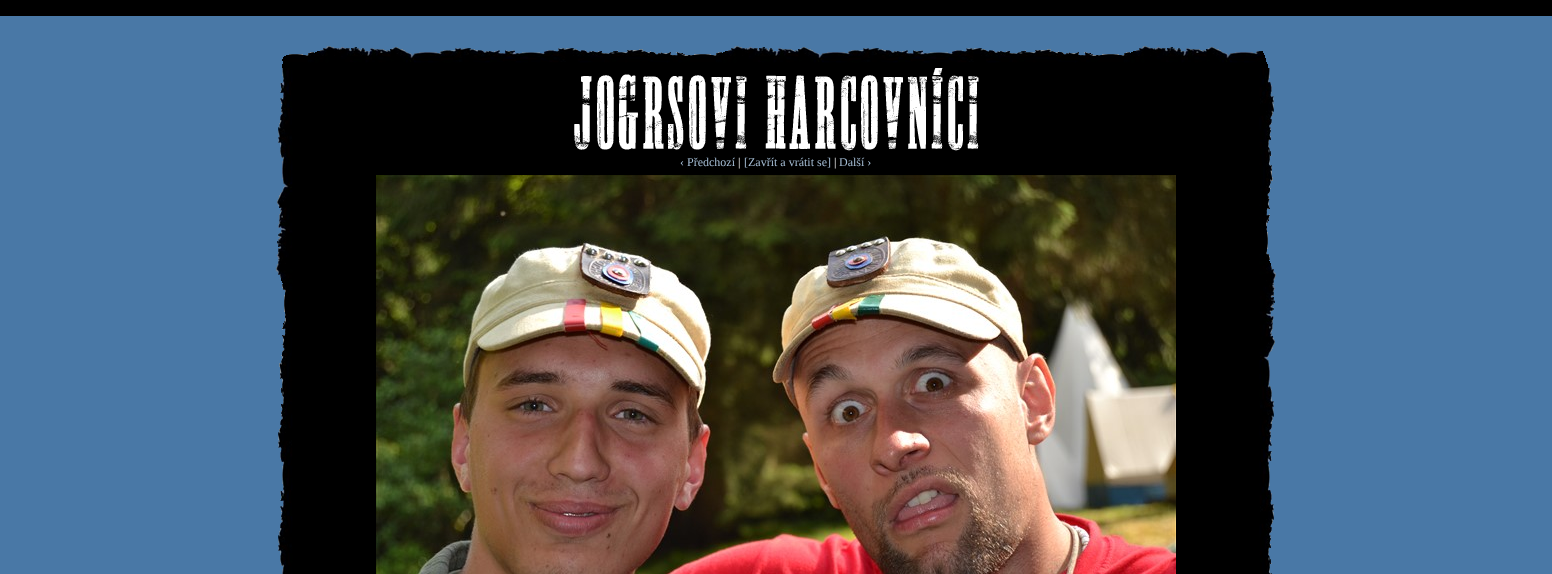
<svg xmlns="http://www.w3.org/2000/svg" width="1552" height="574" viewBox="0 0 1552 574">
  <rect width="100%" height="100%" fill="#4978a6"/>
  <path d="M0 0h1552v16H0z" fill="#000"/>
  <image x="282" y="46" width="986" height="22" href="img/1.png"/>
  <image x="276" y="68" width="22" height="506" href="img/2.png"/>
  <image x="1254" y="68" width="22" height="506" href="img/3.png"/>
  <path d="M298 68h956v506H298z" fill="#000"/>
  <image x="574" y="68" width="405" height="83" href="img/4.png"/>
  <image x="376" y="175" width="800" height="399" href="img/5.png"/>
  <text x="680" y="166" font-family="Liberation Serif" font-size="12" fill="#a4bcd3">‹ Předchozí</text>
  <text x="738" y="166" font-family="Liberation Serif" font-size="12" fill="#fff">|</text>
  <text x="744" y="166" font-family="Liberation Serif" font-size="12" fill="#a4bcd3">[Zavřít a vrátit se]</text>
  <text x="834" y="166" font-family="Liberation Serif" font-size="12" fill="#fff">|</text>
  <text x="839" y="166" font-family="Liberation Serif" font-size="12" fill="#a4bcd3">Další ›</text>
</svg>
